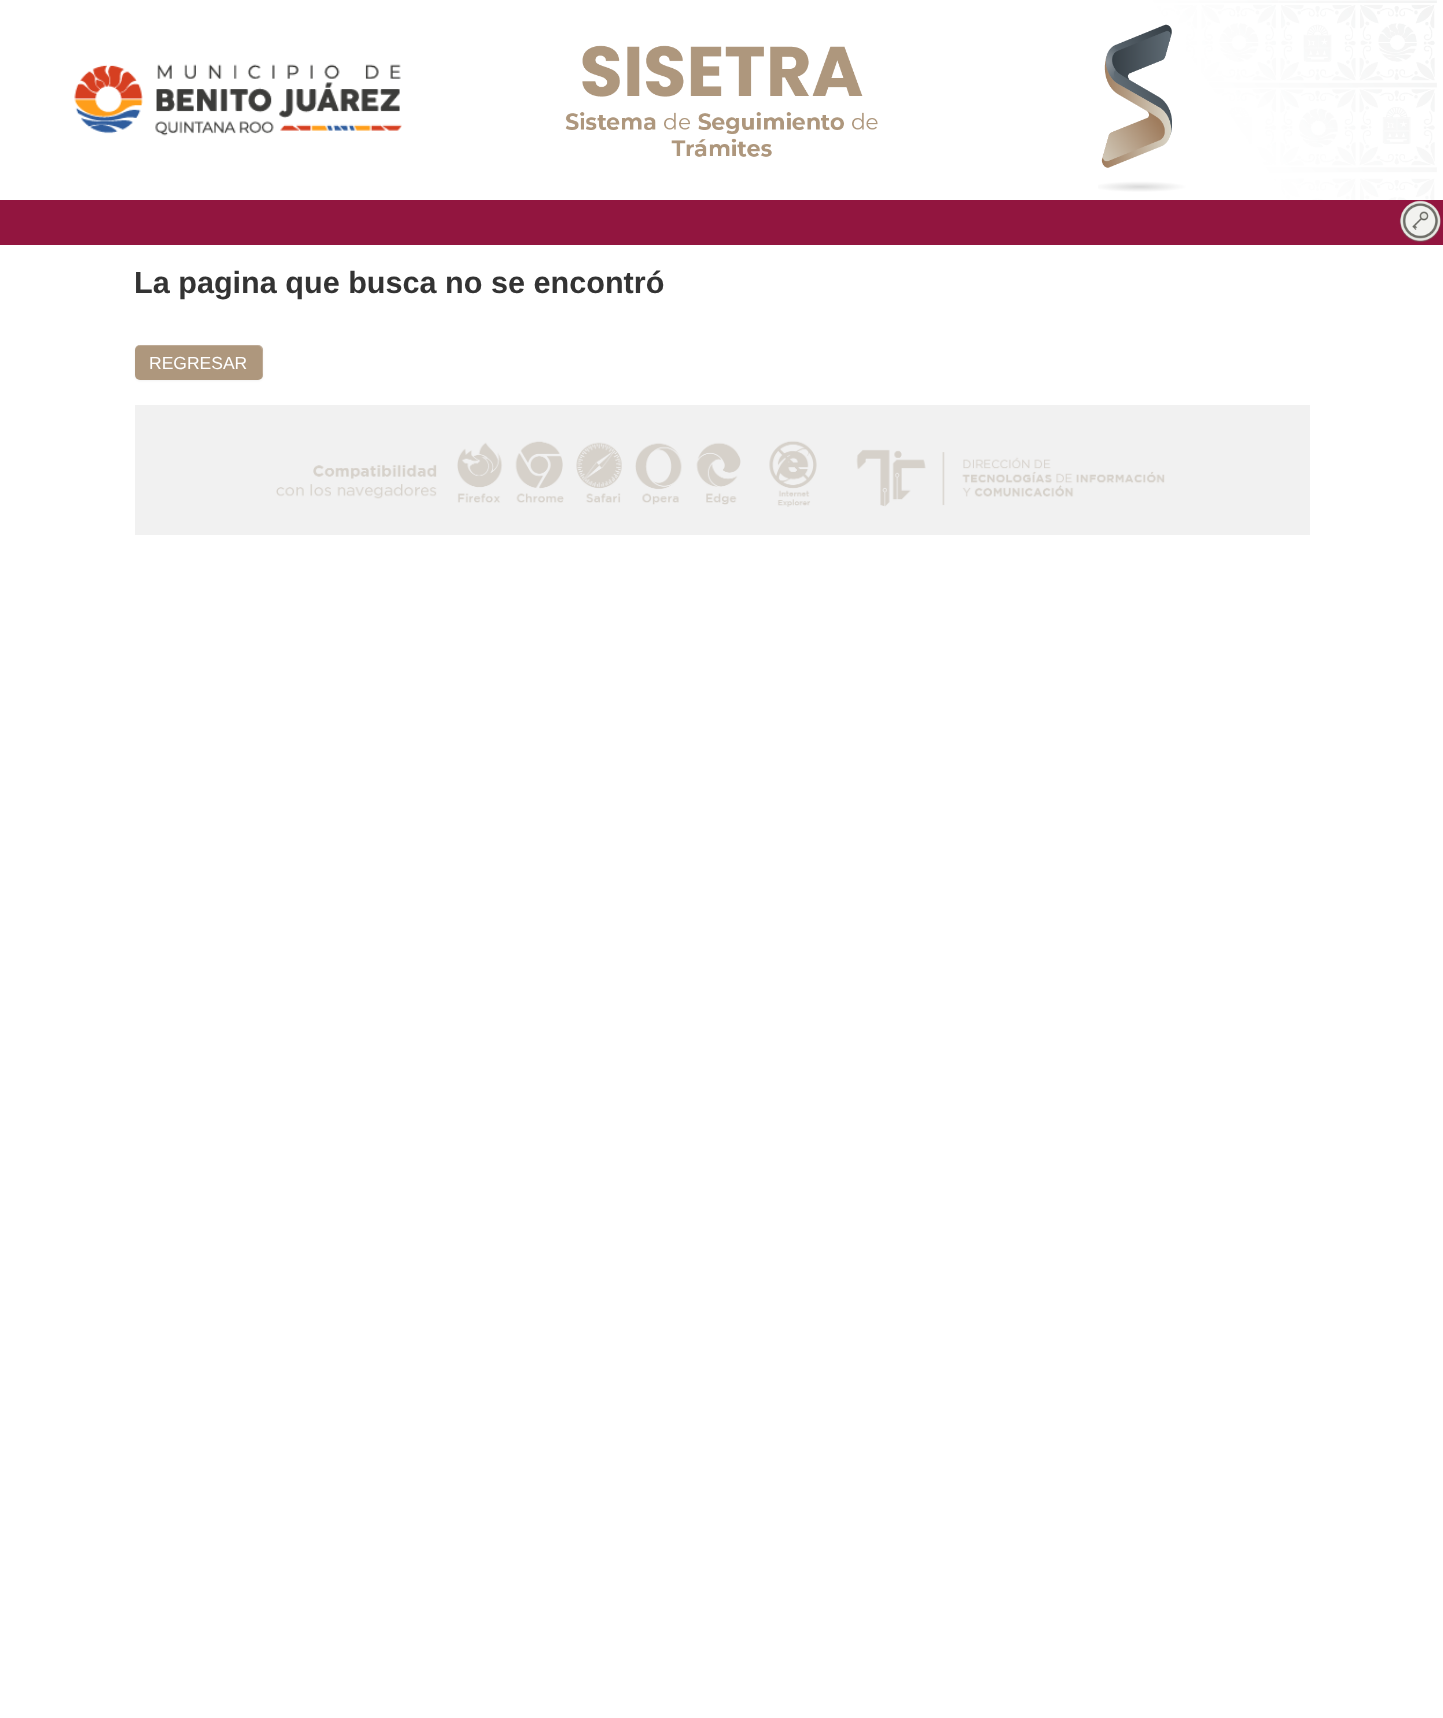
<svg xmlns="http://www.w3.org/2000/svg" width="1443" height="1718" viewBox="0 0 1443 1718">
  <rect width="100%" height="100%" fill="#fff"/>
  <image x="74" y="64" width="328" height="72" href="img/1.png"/>
  <image x="565" y="45" width="313" height="112" href="img/2.png"/>
  <image x="1098" y="0" width="339" height="200" href="img/3.png"/>
  <path d="M0 200h1443v45H0z" fill="#92153f"/>
  <image x="1399" y="200" width="42" height="43" href="img/4.png"/>
  <rect x="135" y="346" width="128" height="35" rx="5" fill="#0000000d" filter="blur(1px)"/>
  <rect x="135" y="345" width="128" height="35" rx="5" fill="#ae977d"/>
  <path d="M140 346H258C260 346 262 348 262 351V376L261 379C264 376 263 366 263 362C263 340 264 345 238 345H160C156 345 135 340 135 351C135 348 137 346 140 346Z" fill="#ffffff33"/>
  <image x="135" y="405" width="1175" height="130" href="img/5.png"/>
  <text x="134" y="293" font-family="Liberation Sans" font-size="30.6" font-weight="bold" fill="#333">La pagina que busca no se encontró</text>
  <text x="149" y="369" font-family="Liberation Sans" font-size="17.5" fill="#fff">REGRESAR</text>
</svg>
